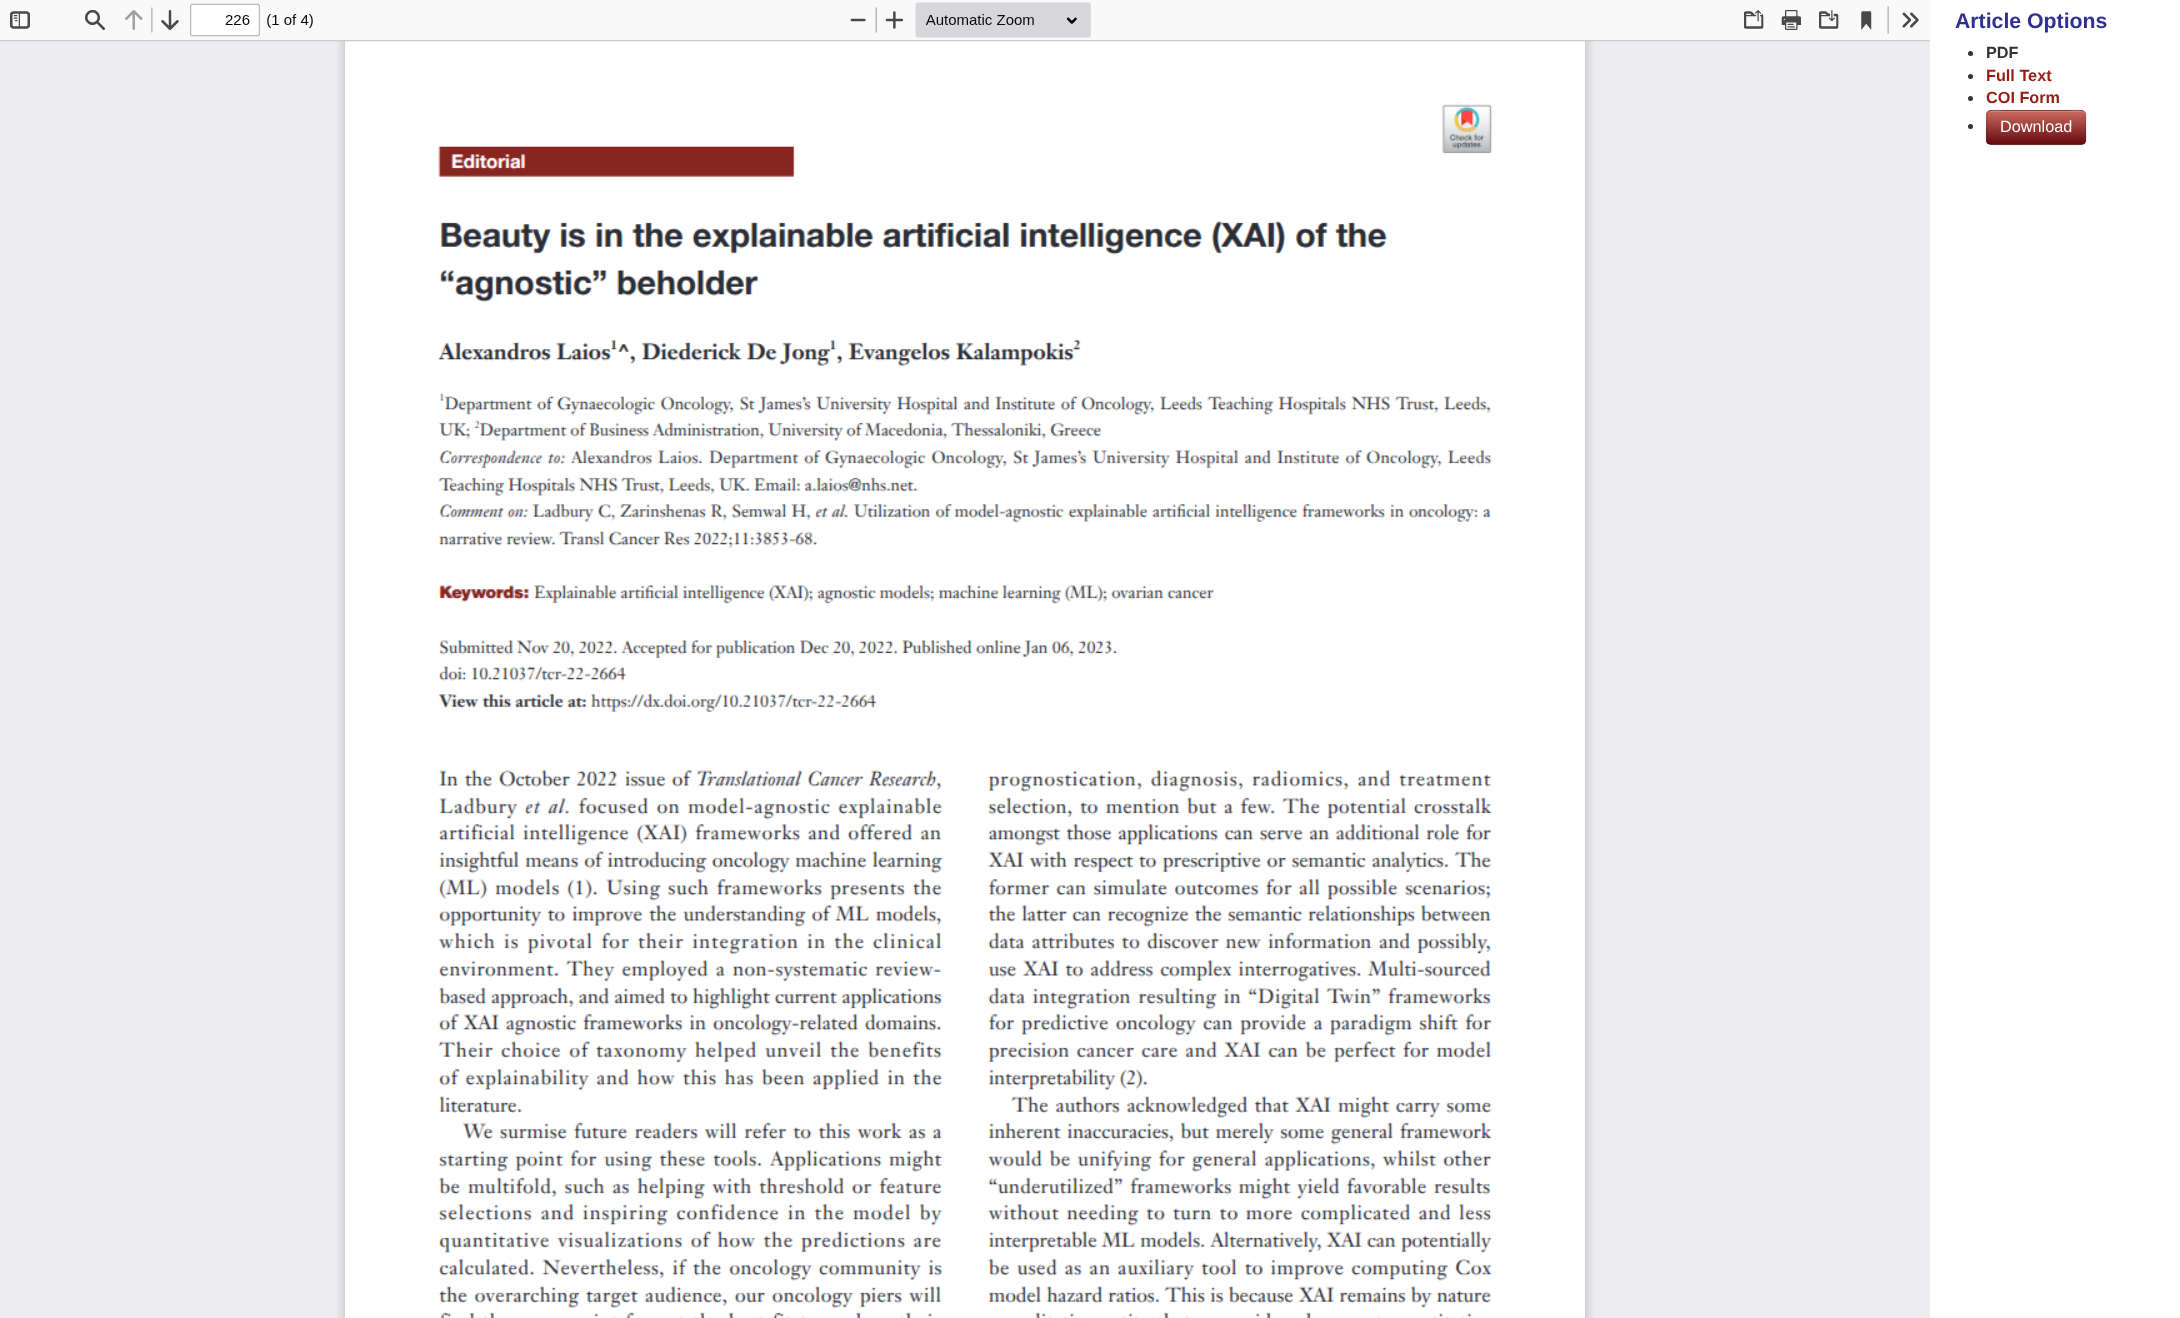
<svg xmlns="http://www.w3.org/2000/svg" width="2180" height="1318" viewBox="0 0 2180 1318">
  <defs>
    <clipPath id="clip1"><rect x="1986" y="110" width="100" height="35" rx="5"/></clipPath>
    <linearGradient id="g1" gradientUnits="userSpaceOnUse" x1="2036" y1="111" x2="2036" y2="144"><stop offset="0" stop-color="#cc6a60"/><stop offset="1" stop-color="#640b10"/></linearGradient>
  </defs>
  <rect width="100%" height="100%" fill="#fff"/>
  <image x="0" y="0" width="1930" height="1318" href="img/1.png"/>
  <circle cx="1970.5" cy="53.5" r="2.5" fill="#333"/>
  <circle cx="1970.5" cy="76.5" r="2.5" fill="#333"/>
  <circle cx="1970.5" cy="98.5" r="2.5" fill="#333"/>
  <circle cx="1970.5" cy="126.5" r="2.5" fill="#333"/>
  <rect x="1986" y="111" width="100" height="35" rx="5" fill="#0000000d" filter="blur(1px)"/>
  <rect x="1986" y="110" width="100" height="35" rx="5" fill="#973c36"/>
  <g clip-path="url(#clip1)">
    <path d="M1986 111h100v33H1986z" fill="url(#g1)"/>
  </g>
  <path d="M1991 112H2081C2083 112 2085 114 2085 116C2085 107 2071 111 2066 111H2007C2002 111 1988 107 1988 116C1988 114 1989 112 1991 112Z" fill="#ffffff33"/>
  <path d="M2084.5 143C2083.5 144 2082.5 144.5 2081 144.5H1991C1990 144.5 1989 144 1988 143" fill="none" stroke="#00000040" stroke-width="1.2"/>
  <path d="M1988 143C1985.5 140.5 1987 130.5 1987 127.5C1987 107.5 1984.5 110.5 2006 110.5H2066C2090 110.5 2085.5 108 2085.5 131.5C2085.5 135 2087 140.5 2084.5 143" fill="none" stroke="#0000001a" stroke-width="1.2"/>
  <text x="1955" y="28" font-family="Liberation Sans" font-size="21.25" font-weight="bold" fill="#2e3092">Article Options</text>
  <text x="1986" y="58" font-family="Liberation Sans" font-size="16.25" font-weight="bold" fill="#333">PDF</text>
  <g font-family="Liberation Sans" font-size="16.25" font-weight="bold" fill="#941e16">
    <text x="1986" y="81">Full Text</text>
    <text x="1986" y="103">COI Form</text>
  </g>
  <text x="2000" y="132" font-family="Liberation Sans" font-size="16.25" fill="#fff">Download</text>
</svg>
